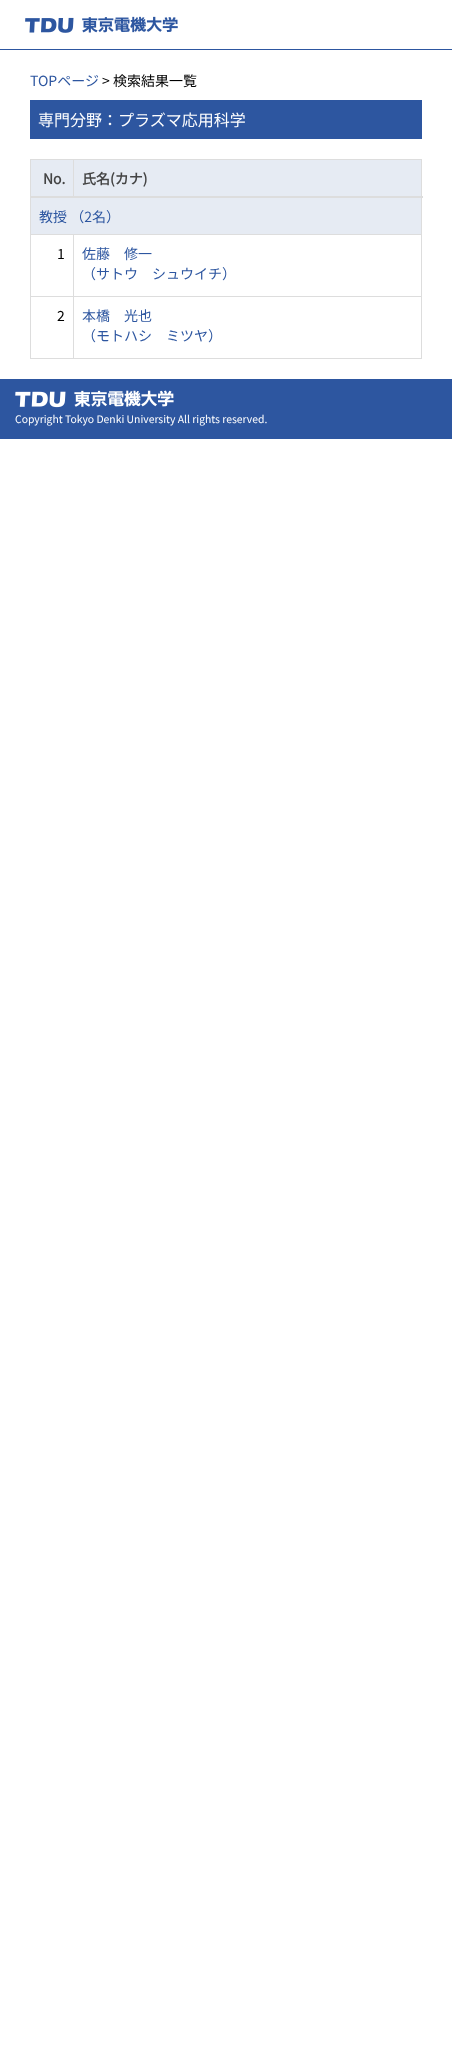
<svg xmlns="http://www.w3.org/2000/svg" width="452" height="2065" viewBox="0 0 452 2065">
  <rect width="100%" height="100%" fill="#fff"/>
  <path d="M0 49h452v1H0z" fill="#2d56a0"/>
  <image x="25" y="16" width="153" height="17" href="img/1.png"/>
  <path d="M30 100h392v39H30z" fill="#2d56a0"/>
  <path d="M30 159h392v1H30z" fill="#ddd"/>
  <path d="M421 159h1v200H421z" fill="#ddd"/>
  <path d="M30 358h392v1H30z" fill="#ddd"/>
  <path d="M30 159h1v200H30z" fill="#ddd"/>
  <path d="M31 160h42v36H31z" fill="#e6ebf3"/>
  <path d="M74 160h347v36H74z" fill="#e6ebf3"/>
  <path d="M73 159h1v38H73z" fill="#ddd"/>
  <path d="M30 196h393v2H30z" fill="#ddd"/>
  <path d="M31 198h390v36H31z" fill="#e6ebf3"/>
  <path d="M73 234h349v1H73z" fill="#ddd"/>
  <path d="M73 296h349v1H73z" fill="#ddd"/>
  <path d="M73 296h1v63H73z" fill="#ddd"/>
  <path d="M30 296h44v1H30z" fill="#ddd"/>
  <path d="M73 234h1v63H73z" fill="#ddd"/>
  <path d="M30 234h44v1H30z" fill="#ddd"/>
  <path d="M0 379h452v60H0z" fill="#2d56a0"/>
  <image x="15" y="390" width="159" height="18" href="img/2.png"/>
  <text x="30" y="86" font-family="Noto Sans JP" font-size="14" font-weight="100" fill="#2d56a0">TOPページ</text>
  <text x="102" y="86" font-family="Noto Sans JP" font-size="14" font-weight="100" fill="#000">&gt; 検索結果一覧</text>
  <text x="38" y="126" font-family="Noto Sans JP" font-size="16" font-weight="100" fill="#fff">専門分野：プラズマ応用科学</text>
  <g font-family="Noto Sans JP" font-size="14" font-weight="bold" fill="#444">
    <text x="43" y="184">No.</text>
    <text x="82" y="184">氏名(カナ)</text>
  </g>
  <text x="39" y="222" font-family="Noto Sans JP" font-size="14" font-weight="100" fill="#2d56a0">教授 （2名）</text>
  <text x="57" y="259" font-family="Noto Sans JP" font-size="14" font-weight="100" fill="#000">1</text>
  <g font-family="Noto Sans JP" font-size="14" font-weight="100" fill="#2d56a0">
    <text x="82" y="259">佐藤　修一</text>
    <text x="82" y="279">（サトウ　シュウイチ）</text>
  </g>
  <text x="57" y="321" font-family="Noto Sans JP" font-size="14" font-weight="100" fill="#000">2</text>
  <g font-family="Noto Sans JP" font-size="14" font-weight="100" fill="#2d56a0">
    <text x="82" y="321">本橋　光也</text>
    <text x="82" y="341">（モトハシ　ミツヤ）</text>
  </g>
  <text x="15" y="423" font-family="Noto Sans JP" font-size="10.4" font-weight="100" fill="#fff">Copyright Tokyo Denki University All rights reserved.</text>
</svg>
